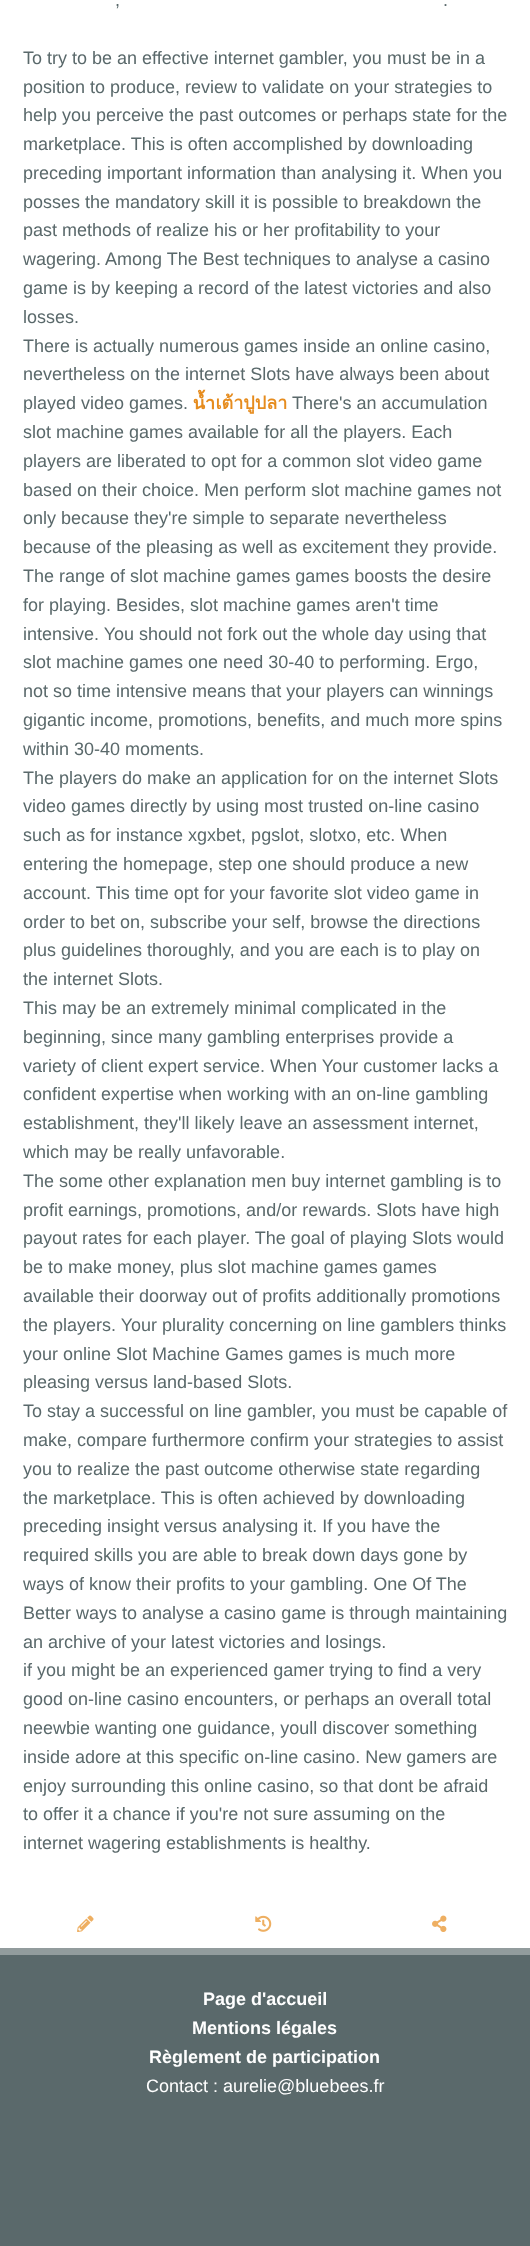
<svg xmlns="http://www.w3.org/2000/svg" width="530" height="2246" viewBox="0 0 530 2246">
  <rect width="100%" height="100%" fill="#fff"/>
  <path d="M0 1948h530v7H0z" fill="#929c9d"/>
  <image x="77" y="1915" width="17" height="17" href="img/1.png"/>
  <image x="255" y="1915" width="17" height="17" href="img/2.png"/>
  <image x="432" y="1915" width="15" height="17" href="img/3.png"/>
  <path d="M0 1955h530v291H0z" fill="#5a696b"/>
  <g font-family="Liberation Sans" font-size="18" fill="#5a696b">
    <text x="115" y="6">,</text>
    <text x="443" y="6">.</text>
    <text x="23" y="64">To try to be an effective internet gambler, you must be in a</text>
    <text x="23" y="93">position to produce, review to validate on your strategies to</text>
    <text x="23" y="121">help you perceive the past outcomes or perhaps state for the</text>
    <text x="23" y="150">marketplace. This is often accomplished by downloading</text>
    <text x="23" y="179">preceding important information than analysing it. When you</text>
    <text x="23" y="208">posses the mandatory skill it is possible to breakdown the</text>
    <text x="23" y="236">past methods of realize his or her profitability to your</text>
    <text x="23" y="265">wagering. Among The Best techniques to analyse a casino</text>
    <text x="23" y="294">game is by keeping a record of the latest victories and also</text>
    <text x="23" y="323">losses.</text>
    <text x="23" y="352">There is actually numerous games inside an online casino,</text>
    <text x="23" y="380">nevertheless on the internet Slots have always been about</text>
    <text x="23" y="409">played video games.</text>
  </g>
  <text x="193" y="409" font-family="Loma" font-size="18" font-weight="bold" fill="#e68c1e">น้ำเต้าปูปลา</text>
  <g font-family="Liberation Sans" font-size="18" fill="#5a696b">
    <text x="292" y="409">There's an accumulation</text>
    <text x="23" y="438">slot machine games available for all the players. Each</text>
    <text x="23" y="467">players are liberated to opt for a common slot video game</text>
    <text x="23" y="496">based on their choice. Men perform slot machine games not</text>
    <text x="23" y="524">only because they're simple to separate nevertheless</text>
    <text x="23" y="553">because of the pleasing as well as excitement they provide.</text>
    <text x="23" y="582">The range of slot machine games games boosts the desire</text>
    <text x="23" y="611">for playing. Besides, slot machine games aren't time</text>
    <text x="23" y="640">intensive. You should not fork out the whole day using that</text>
    <text x="23" y="668">slot machine games one need 30-40 to performing. Ergo,</text>
    <text x="23" y="697">not so time intensive means that your players can winnings</text>
    <text x="23" y="726">gigantic income, promotions, benefits, and much more spins</text>
    <text x="23" y="755">within 30-40 moments.</text>
    <text x="23" y="784">The players do make an application for on the internet Slots</text>
    <text x="23" y="812">video games directly by using most trusted on-line casino</text>
    <text x="23" y="841">such as for instance xgxbet, pgslot, slotxo, etc. When</text>
    <text x="23" y="870">entering the homepage, step one should produce a new</text>
    <text x="23" y="899">account. This time opt for your favorite slot video game in</text>
    <text x="23" y="928">order to bet on, subscribe your self, browse the directions</text>
    <text x="23" y="956">plus guidelines thoroughly, and you are each is to play on</text>
    <text x="23" y="985">the internet Slots.</text>
    <text x="23" y="1014">This may be an extremely minimal complicated in the</text>
    <text x="23" y="1043">beginning, since many gambling enterprises provide a</text>
    <text x="23" y="1072">variety of client expert service. When Your customer lacks a</text>
    <text x="23" y="1100">confident expertise when working with an on-line gambling</text>
    <text x="23" y="1129">establishment, they'll likely leave an assessment internet,</text>
    <text x="23" y="1158">which may be really unfavorable.</text>
    <text x="23" y="1187">The some other explanation men buy internet gambling is to</text>
    <text x="23" y="1216">profit earnings, promotions, and/or rewards. Slots have high</text>
    <text x="23" y="1244">payout rates for each player. The goal of playing Slots would</text>
    <text x="23" y="1273">be to make money, plus slot machine games games</text>
    <text x="23" y="1302">available their doorway out of profits additionally promotions</text>
    <text x="23" y="1331">the players. Your plurality concerning on line gamblers thinks</text>
    <text x="23" y="1360">your online Slot Machine Games games is much more</text>
    <text x="23" y="1388">pleasing versus land-based Slots.</text>
    <text x="23" y="1417">To stay a successful on line gambler, you must be capable of</text>
    <text x="23" y="1446">make, compare furthermore confirm your strategies to assist</text>
    <text x="23" y="1475">you to realize the past outcome otherwise state regarding</text>
    <text x="23" y="1504">the marketplace. This is often achieved by downloading</text>
    <text x="23" y="1532">preceding insight versus analysing it. If you have the</text>
    <text x="23" y="1561">required skills you are able to break down days gone by</text>
    <text x="23" y="1590">ways of know their profits to your gambling. One Of The</text>
    <text x="23" y="1619">Better ways to analyse a casino game is through maintaining</text>
    <text x="23" y="1648">an archive of your latest victories and losings.</text>
    <text x="23" y="1676">if you might be an experienced gamer trying to find a very</text>
    <text x="23" y="1705">good on-line casino encounters, or perhaps an overall total</text>
    <text x="23" y="1734">neewbie wanting one guidance, youll discover something</text>
    <text x="23" y="1763">inside adore at this specific on-line casino. New gamers are</text>
    <text x="23" y="1792">enjoy surrounding this online casino, so that dont be afraid</text>
    <text x="23" y="1820">to offer it a chance if you're not sure assuming on the</text>
    <text x="23" y="1849">internet wagering establishments is healthy.</text>
  </g>
  <g font-family="Liberation Sans" font-size="18" font-weight="bold" fill="#fff">
    <text x="203" y="2005">Page d'accueil</text>
    <text x="192" y="2034">Mentions légales</text>
    <text x="149" y="2063">Règlement de participation</text>
  </g>
  <text x="146" y="2092" font-family="Liberation Sans" font-size="18" fill="#fff">Contact : aurelie@bluebees.fr</text>
</svg>
